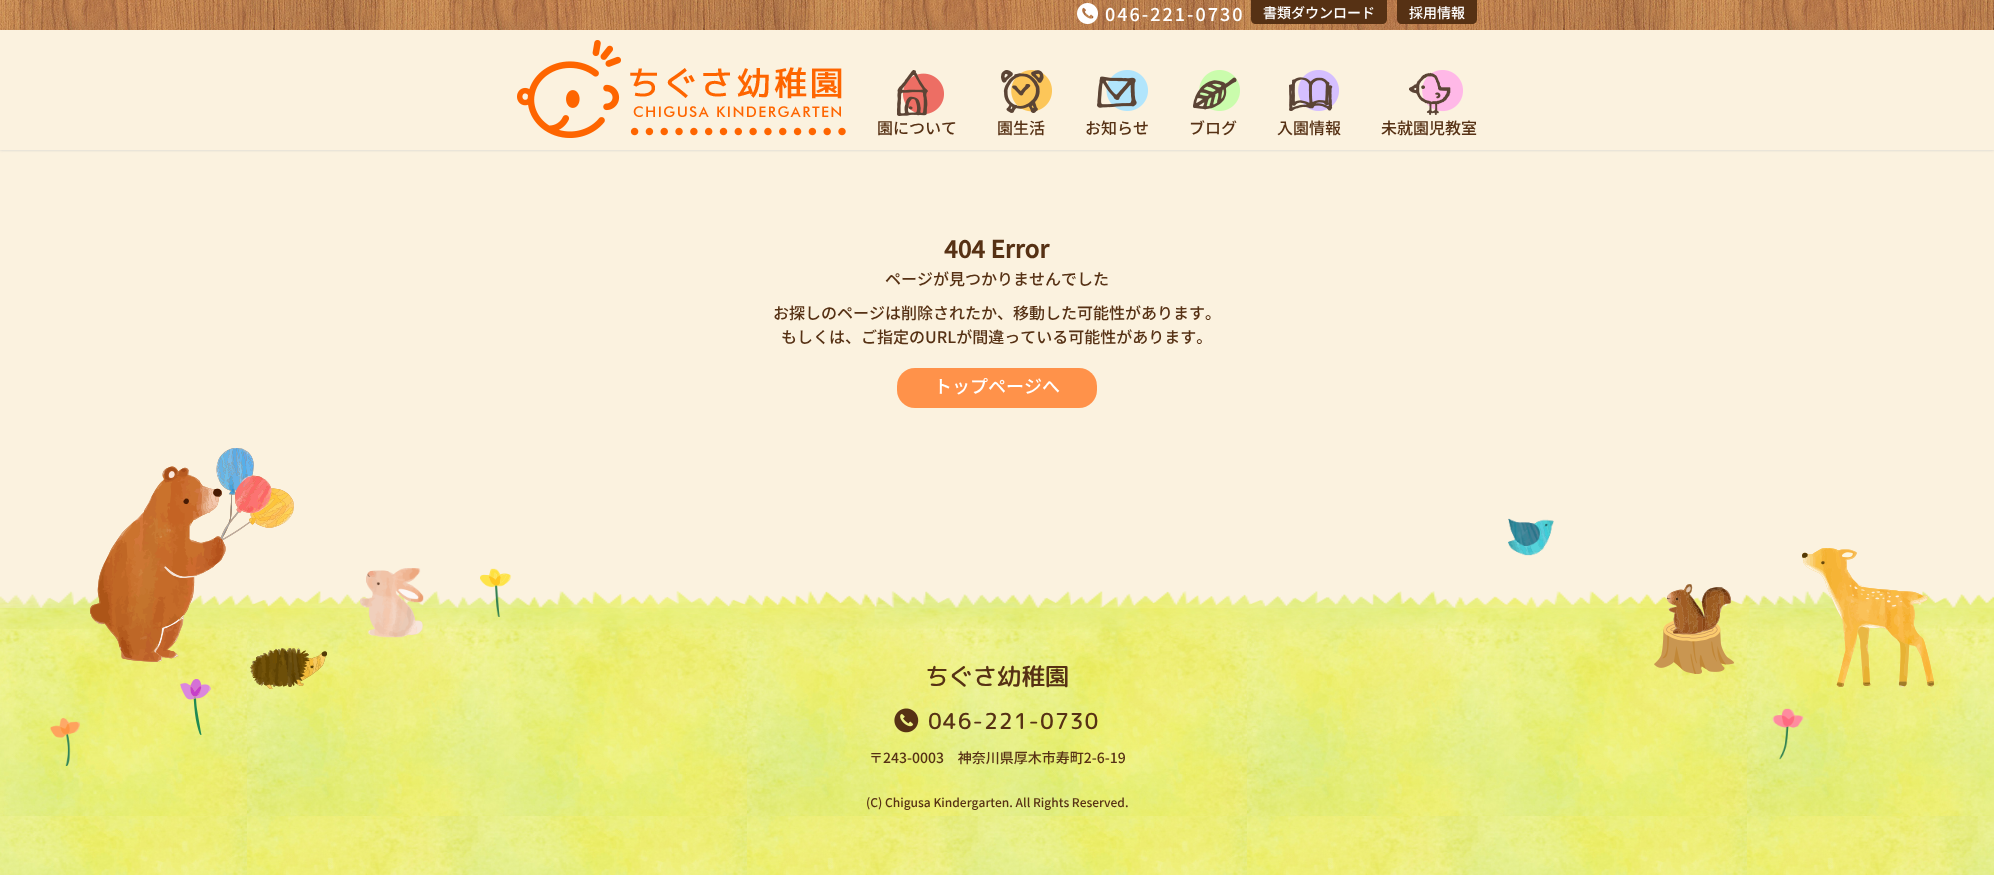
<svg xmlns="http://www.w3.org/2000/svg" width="1994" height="875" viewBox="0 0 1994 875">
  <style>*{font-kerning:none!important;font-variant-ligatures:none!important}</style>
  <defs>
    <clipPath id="clip1"><path d="M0 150h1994v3H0z"/></clipPath>
  </defs>
  <rect width="100%" height="100%" fill="#fff"/>
  <image x="0" y="816" width="1994" height="59" href="img/1.png"/>
  <path d="M0 30h1994v578H0z" fill="#fbf2df"/>
  <g clip-path="url(#clip1)">
    <path d="M0 0h1994v150H0z" fill="#ccc" filter="blur(1.5px)"/>
  </g>
  <image x="0" y="0" width="1994" height="30" href="img/2.png"/>
  <image x="517" y="40" width="329" height="98" href="img/3.png"/>
  <image x="1077" y="3" width="21" height="21" href="img/4.png"/>
  <path d="M1251 0H1387V19C1387 22 1385 24 1382 24H1256C1253 24 1251 22 1251 19Z" fill="#563114"/>
  <path d="M1397 0H1477V19C1477 22 1475 24 1472 24H1402C1399 24 1397 22 1397 19Z" fill="#563114"/>
  <image x="897" y="70" width="47" height="46" href="img/5.png"/>
  <image x="1001" y="70" width="51" height="43" href="img/6.png"/>
  <image x="1097" y="70" width="51" height="41" href="img/7.png"/>
  <image x="1193" y="70" width="47" height="41" href="img/8.png"/>
  <image x="1289" y="70" width="50" height="41" href="img/9.png"/>
  <image x="1409" y="70" width="54" height="45" href="img/10.png"/>
  <rect x="897" y="368" width="200" height="40" rx="18" fill="#ff924a"/>
  <image x="0" y="608" width="1994" height="208" href="img/11.png"/>
  <image x="0" y="591" width="1994" height="38" href="img/23.png"/>
  <image x="90" y="448" width="204" height="214" href="img/12.png"/>
  <image x="1508" y="518" width="46" height="38" href="img/13.png"/>
  <image x="360" y="568" width="64" height="70" href="img/14.png"/>
  <image x="480" y="568" width="32" height="49" href="img/15.png"/>
  <image x="1654" y="620" width="80" height="54" href="img/19.png"/>
  <image x="1667" y="584" width="64" height="50" href="img/16.png"/>
  <image x="1802" y="548" width="132" height="139" href="img/17.png"/>
  <image x="250" y="648" width="77" height="41" href="img/18.png"/>
  <image x="50" y="718" width="30" height="48" href="img/20.png"/>
  <image x="180" y="679" width="31" height="56" href="img/21.png"/>
  <image x="1772" y="708" width="32" height="52" href="img/22.png"/>
  <image x="894" y="708" width="25" height="25" href="img/24.png"/>
  <text x="1105" y="21" font-family="Noto Sans JP" font-size="18" font-weight="100" letter-spacing="2" fill="#fff">046-221-0730</text>
  <g font-family="Noto Sans JP" font-size="14" font-weight="100" fill="#fff">
    <text x="1263" y="18">書類ダウンロード</text>
    <text x="1409" y="18">採用情報</text>
  </g>
  <g font-family="Noto Sans JP" font-size="16" font-weight="100" fill="#563114">
    <text x="877" y="134">園について</text>
    <text x="997" y="134">園生活</text>
    <text x="1085" y="134">お知らせ</text>
    <text x="1189" y="134">ブログ</text>
    <text x="1277" y="134">入園情報</text>
    <text x="1381" y="134">未就園児教室</text>
  </g>
  <text x="944" y="258" font-family="Noto Sans JP" font-size="24" font-weight="bold" fill="#563114">404 Error</text>
  <g font-family="Noto Sans JP" font-size="16" font-weight="100" fill="#563114">
    <text x="885" y="285">ページが見つかりませんでした</text>
    <text x="773" y="319">お探しのページは削除されたか、移動した可能性があります。</text>
    <text x="781" y="343">もしくは、ご指定のURLが間違っている可能性があります。</text>
  </g>
  <text x="934" y="393" font-family="Noto Sans JP" font-size="18" font-weight="100" fill="#fff">トップページへ</text>
  <text x="925" y="685" font-family="'Rounded Mplus 1c'" font-size="24" font-weight="500" fill="#563114">ちぐさ幼稚園</text>
  <text x="928" y="729" font-family="'Rounded Mplus 1c'" font-size="22" font-weight="500" letter-spacing="1" fill="#563114">046-221-0730</text>
  <text x="869" y="763" font-family="Noto Sans JP" font-size="14" font-weight="100" fill="#563114">〒243-0003　神奈川県厚木市寿町2-6-19</text>
  <text x="866" y="807" font-family="Noto Sans JP" font-size="12" font-weight="100" fill="#563114">(C) Chigusa Kindergarten. All Rights Reserved.</text>
</svg>
